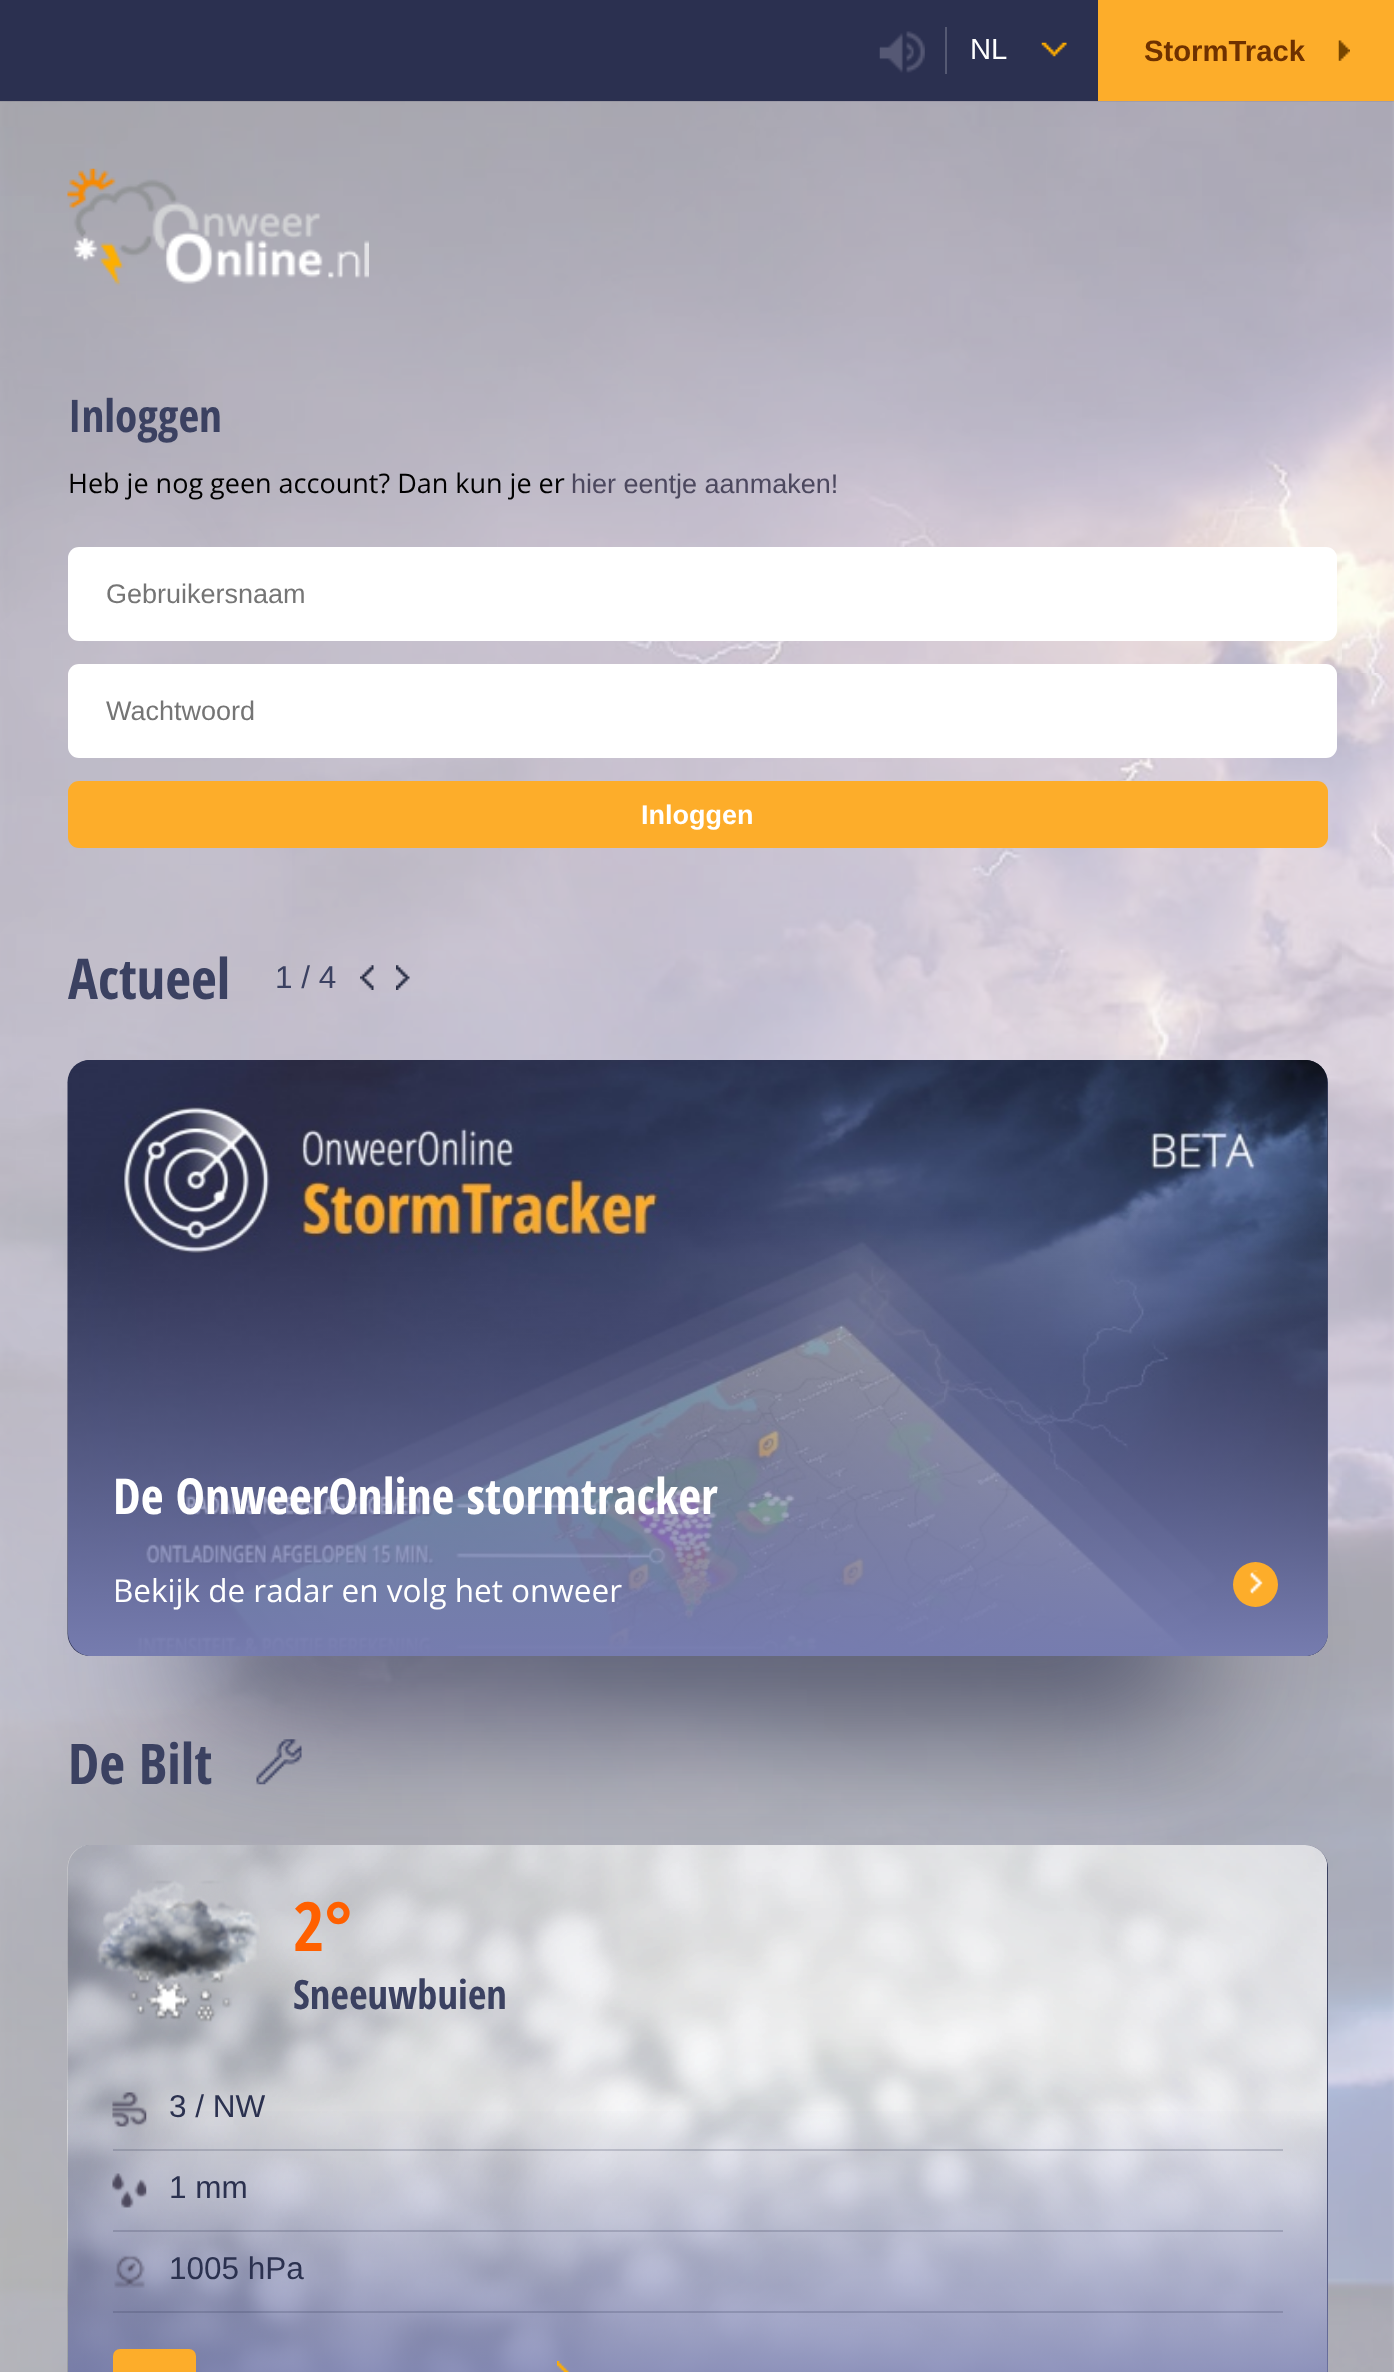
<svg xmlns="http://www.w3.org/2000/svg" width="1394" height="2372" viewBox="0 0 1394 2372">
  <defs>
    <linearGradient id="g1" gradientUnits="userSpaceOnUse" x1="698" y1="1206" x2="698" y2="1656"><stop offset="0" stop-color="#767caf" stop-opacity="0"/><stop offset="1" stop-color="#767caf"/></linearGradient>
    <linearGradient id="g2" gradientUnits="userSpaceOnUse" x1="698" y1="2104" x2="698" y2="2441"><stop offset="0" stop-color="#767caf" stop-opacity="0"/><stop offset="1" stop-color="#767caf"/></linearGradient>
  </defs>
  <rect width="100%" height="100%" fill="#fff"/>
  <image x="0" y="101" width="1394" height="2271" href="img/1.png"/>
  <path d="M0 0h1098v101H0z" fill="#2b3050"/>
  <image x="879" y="31" width="46" height="42" href="img/2.png"/>
  <path d="M945 27h2v47H945z" fill="#555973"/>
  <image x="1041" y="42" width="26" height="15" href="img/3.png"/>
  <path d="M1098 0h296v101H1098z" fill="#fdad2a"/>
  <image x="1338" y="40" width="12" height="21" href="img/4.png"/>
  <image x="0" y="101" width="1394" height="2271" href="img/5.png"/>
  <image x="67" y="168" width="302" height="118" href="img/6.png"/>
  <rect x="68" y="547" width="1269" height="94" rx="11" fill="#fff"/>
  <rect x="68" y="664" width="1269" height="94" rx="11" fill="#fff"/>
  <rect x="68" y="781" width="1260" height="67" rx="11" fill="#fdad2a"/>
  <image x="360" y="965" width="14" height="25" href="img/7.png"/>
  <image x="396" y="965" width="14" height="25" href="img/8.png"/>
  <rect x="194" y="1589" width="1008" height="112" rx="56" fill="#2b314fe6" filter="blur(67.5px)"/>
  <rect x="68" y="1060" width="1260" height="596" rx="23" fill="#3b4161"/>
  <image x="67" y="1060" width="1261" height="596" href="img/9.png"/>
  <path d="M68 1206H1328V1633C1328 1645.5 1317.5 1656 1305 1656H91C78.5 1656 68 1645.5 68 1633Z" fill="url(#g1)"/>
  <circle cx="1255.5" cy="1584.5" r="22.5" fill="#fdad2a"/>
  <image x="1249" y="1570" width="14" height="24" href="img/10.png"/>
  <image x="256" y="1739" width="46" height="46" href="img/11.png"/>
  <rect x="68" y="1845" width="1260" height="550" rx="23" fill="#3b4161"/>
  <image x="67" y="1845" width="1260" height="527" href="img/12.png"/>
  <image x="67" y="1845" width="1260" height="527" href="img/13.png"/>
  <image x="96" y="1880" width="164" height="142" href="img/14.png"/>
  <path d="M68 2111h1260v261H68z" fill="url(#g2)"/>
  <path d="M113 2149h1170v2H113z" fill="#2b314f33"/>
  <image x="112" y="2092" width="35" height="35" href="img/15.png"/>
  <path d="M113 2230h1170v2H113z" fill="#2b314f33"/>
  <image x="112" y="2173" width="35" height="35" href="img/16.png"/>
  <path d="M113 2311h1170v2H113z" fill="#2b314f33"/>
  <image x="114" y="2255" width="31" height="33" href="img/17.png"/>
  <rect x="113" y="2349" width="83" height="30" rx="7" fill="#fdad2a"/>
  <image x="557" y="2361" width="12" height="11" href="img/18.png"/>
  <text x="970" y="59" font-family="Liberation Sans" font-size="29.25" fill="#fff">NL</text>
  <text x="1144" y="61" font-family="Liberation Sans" font-size="29.25" font-weight="bold" fill="#6e3100">StormTrack</text>
  <text x="68" y="432" font-family="Open Sans Condensed" font-size="45" font-weight="bold" fill="#3b4161">Inloggen</text>
  <text x="68" y="493" font-family="Open Sans" font-size="27" fill="#000">Heb je nog geen account? Dan kun je er</text>
  <text x="571" y="493" font-family="Liberation Sans" font-size="27" fill="#4c485e">hier eentje aanmaken!</text>
  <g font-family="Liberation Sans" font-size="27" fill="#757575">
    <text x="106" y="603">Gebruikersnaam</text>
    <text x="106" y="720">Wachtwoord</text>
  </g>
  <text x="641" y="824" font-family="Liberation Sans" font-size="27" font-weight="bold" fill="#fff">Inloggen</text>
  <text x="68" y="999" font-family="Open Sans Condensed" font-size="56" font-weight="bold" fill="#3b4161">Actueel</text>
  <text x="275" y="988" font-family="Liberation Sans" font-size="31.5" fill="#3b4161">1 / 4</text>
  <text x="113" y="1514" font-family="Open Sans Condensed" font-size="49.5" font-weight="bold" fill="#fff">De OnweerOnline stormtracker</text>
  <text x="113" y="1602" font-family="Open Sans" font-size="31.5" fill="#fff">Bekijk de radar en volg het onweer</text>
  <text x="68" y="1784" font-family="Open Sans Condensed" font-size="56" font-weight="bold" fill="#3b4161">De Bilt</text>
  <text x="293" y="1951" font-family="Open Sans Condensed" font-size="68" font-weight="bold" fill="#ff6000">2°</text>
  <text x="293" y="2009" font-family="Open Sans Condensed" font-size="40.5" font-weight="bold" fill="#3b4161">Sneeuwbuien</text>
  <g font-family="Liberation Sans" font-size="31.5" fill="#2b314f">
    <text x="169" y="2117">3 / NW</text>
    <text x="169" y="2198">1 mm</text>
    <text x="169" y="2279">1005 hPa</text>
  </g>
</svg>
